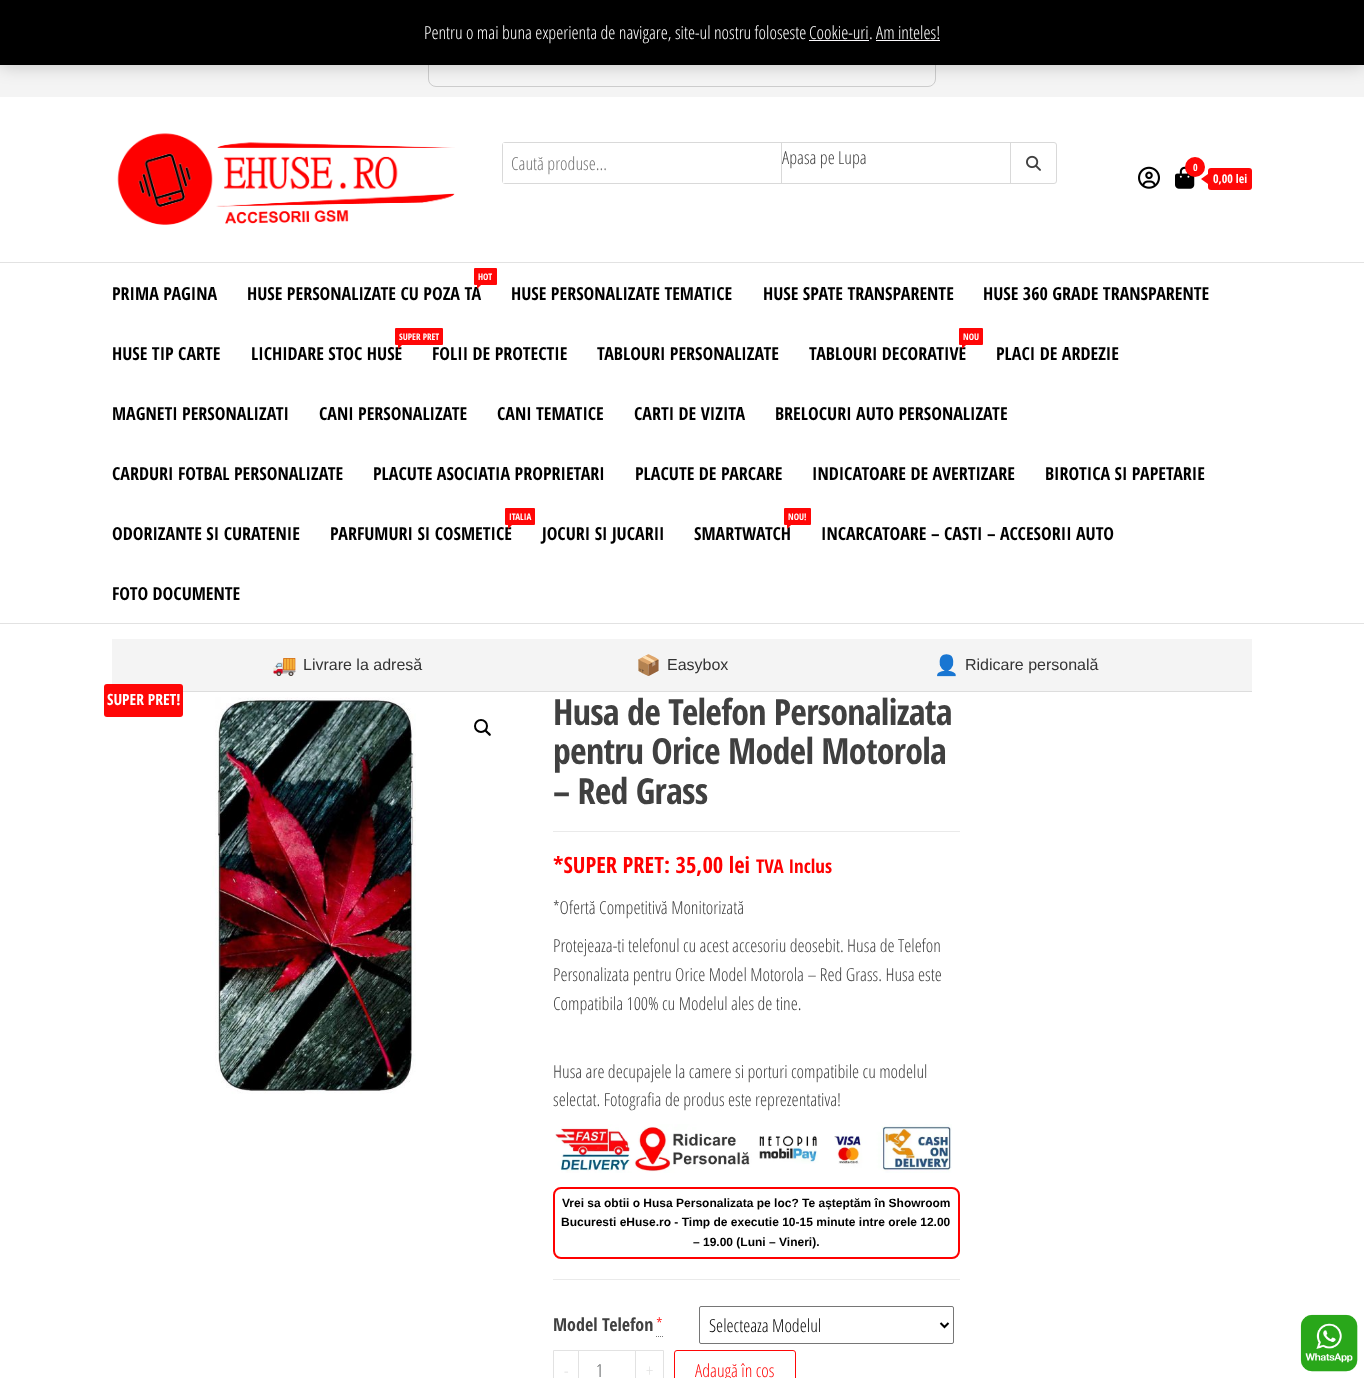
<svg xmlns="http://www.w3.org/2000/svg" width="1364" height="1378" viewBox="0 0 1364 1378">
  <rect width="100%" height="100%" fill="#fff"/>
  <path d="M0 65h1364v32H0z" fill="#f4f4f4"/>
  <rect x="428.5" y="10.5" width="507" height="76" rx="7.5" fill="none" stroke="#ccc"/>
  <path d="M0 1h1364v65H0z" fill="#00000033" filter="blur(9px)"/>
  <path d="M0 0h1364v65H0z" fill="#000"/>
  <path d="M809 40h60v1H809z" fill="#fcfbfe"/>
  <path d="M876 40h64v1H876z" fill="#fcfbfe"/>
  <image x="117" y="133" width="338" height="92" href="img/1.png"/>
  <rect x="502.5" y="142.5" width="554" height="41" rx="2.5" fill="none" stroke="#d9d9d9"/>
  <path d="M503 143h2v40H503z" fill="#fff"/>
  <path d="M1010 143h1v40H1010z" fill="#d9d9d9"/>
  <image x="1026" y="155" width="15" height="16" href="img/2.png"/>
  <image x="1138" y="166" width="22" height="23" href="img/3.png"/>
  <image x="1175" y="166" width="20" height="23" href="img/4.png"/>
  <circle cx="1195" cy="167" r="10" fill="#ff0707"/>
  <rect x="1208" y="168" width="44" height="22" rx="3" fill="#ff0707"/>
  <path d="M1208 174V184L1201 179Z" fill="#ff0707"/>
  <path d="M0 262h1364v1H0z" fill="#e2e2e2"/>
  <path d="M0 623h1364v1H0z" fill="#e2e2e2"/>
  <rect x="474" y="268" width="23" height="17" rx="1" fill="#ff0707"/>
  <rect x="395" y="328" width="48" height="17" rx="1" fill="#ff0707"/>
  <rect x="959" y="328" width="24" height="17" rx="1" fill="#ff0707"/>
  <rect x="505" y="508" width="30" height="17" rx="1" fill="#ff0707"/>
  <rect x="784" y="508" width="27" height="17" rx="1" fill="#ff0707"/>
  <path d="M112 639h1140v52H112z" fill="#f4f4f4"/>
  <path d="M183 691h1069v1H183z" fill="#ddd"/>
  <rect x="104" y="684" width="79" height="33" rx="3" fill="#ff0707"/>
  <image x="210" y="697" width="206" height="397" href="img/5.png"/>
  <circle cx="481" cy="726" r="6" fill="none" stroke="#000" stroke-width="2"/>
  <path d="M485 730C486 729 488 731.5 488.5 732C489 732.5 492 734.5 490.5 735.5C489.5 737 487.5 734 487 733.5C486.5 733 484 731 485 730Z" fill="#000"/>
  <path d="M553 831h407v1H553z" fill="#eaeaea"/>
  <image x="555" y="1124" width="397" height="49" href="img/6.png"/>
  <rect x="554" y="1188" width="405" height="70" rx="7" fill="none" stroke="#f00" stroke-width="2"/>
  <path d="M553 1279h407v1H553z" fill="#eaeaea"/>
  <path d="M656 1336.5H657M658 1336.5H659M660 1336.5H661M662 1336.5H663" fill="none" stroke="#777"/>
  <rect x="699.5" y="1306.5" width="254" height="37" rx="1.5" fill="none" stroke="#767676"/>
  <path d="M940.5 1323L944.5 1327L948.5 1323" fill="none" stroke="#000" stroke-width="2"/>
  <path d="M553.5 1350.5h25v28H553.5z" fill="none" stroke="#e2e2e2"/>
  <path d="M578.5 1350.5h57v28H578.5z" fill="none" stroke="#e2e2e2"/>
  <path d="M635.5 1350.5h28v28H635.5z" fill="none" stroke="#e2e2e2"/>
  <rect x="674.5" y="1350.5" width="121" height="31" rx="2.5" fill="none" stroke="#ff0707"/>
  <image x="1300" y="1314" width="58" height="58" href="img/7.png"/>
  <g font-family="Open Sans Condensed" font-size="18" font-weight="300" fill="#fff">
    <text x="424" y="39">Pentru o mai buna experienta de navigare, site-ul nostru foloseste</text>
    <text x="809" y="39">Cookie-uri</text>
    <text x="869" y="39">.</text>
    <text x="876" y="39">Am inteles!</text>
  </g>
  <text x="511" y="170" font-family="Open Sans Condensed" font-size="18" font-weight="300" fill="#757575">Caută produse...</text>
  <text x="782" y="164" font-family="Open Sans Condensed" font-size="18" font-weight="300" fill="#404040">Apasa pe Lupa</text>
  <path d="M781 143h1v40H781z" fill="#d9d9d9"/>
  <text x="1193" y="171" font-family="Open Sans Condensed" font-size="10" font-weight="bold" fill="#fff">0</text>
  <text x="1213" y="183" font-family="Open Sans Condensed" font-size="12" font-weight="bold" fill="#fff">0,00 lei</text>
  <text x="112" y="300" font-family="Open Sans Condensed" font-size="18" font-weight="bold" fill="#000">PRIMA PAGINA</text>
  <text x="478" y="280" font-family="Open Sans Condensed" font-size="9" font-weight="bold" fill="#fff">HOT</text>
  <text x="247" y="300" font-family="Open Sans Condensed" font-size="18" font-weight="bold" fill="#000">HUSE PERSONALIZATE CU POZA TA</text>
  <path d="M477 284H482L477 289Z" fill="#ff0707"/>
  <g font-family="Open Sans Condensed" font-size="18" font-weight="bold" fill="#000">
    <text x="511" y="300">HUSE PERSONALIZATE TEMATICE</text>
    <text x="763" y="300">HUSE SPATE TRANSPARENTE</text>
    <text x="983" y="300">HUSE 360 GRADE TRANSPARENTE</text>
    <text x="112" y="360">HUSE TIP CARTE</text>
  </g>
  <text x="399" y="340" font-family="Open Sans Condensed" font-size="9" font-weight="bold" fill="#fff">SUPER PRET</text>
  <text x="251" y="360" font-family="Open Sans Condensed" font-size="18" font-weight="bold" fill="#000">LICHIDARE STOC HUSE</text>
  <path d="M398 344H403L398 349Z" fill="#ff0707"/>
  <g font-family="Open Sans Condensed" font-size="18" font-weight="bold" fill="#000">
    <text x="432" y="360">FOLII DE PROTECTIE</text>
    <text x="597" y="360">TABLOURI PERSONALIZATE</text>
  </g>
  <text x="963" y="340" font-family="Open Sans Condensed" font-size="9" font-weight="bold" fill="#fff">NOU</text>
  <text x="809" y="360" font-family="Open Sans Condensed" font-size="18" font-weight="bold" fill="#000">TABLOURI DECORATIVE</text>
  <path d="M962 344H967L962 349Z" fill="#ff0707"/>
  <g font-family="Open Sans Condensed" font-size="18" font-weight="bold" fill="#000">
    <text x="996" y="360">PLACI DE ARDEZIE</text>
    <text x="112" y="420">MAGNETI PERSONALIZATI</text>
    <text x="319" y="420">CANI PERSONALIZATE</text>
    <text x="497" y="420">CANI TEMATICE</text>
    <text x="634" y="420">CARTI DE VIZITA</text>
    <text x="775" y="420">BRELOCURI AUTO PERSONALIZATE</text>
    <text x="112" y="480">CARDURI FOTBAL PERSONALIZATE</text>
    <text x="373" y="480">PLACUTE ASOCIATIA PROPRIETARI</text>
    <text x="635" y="480">PLACUTE DE PARCARE</text>
    <text x="812" y="480">INDICATOARE DE AVERTIZARE</text>
    <text x="1045" y="480">BIROTICA SI PAPETARIE</text>
    <text x="112" y="540">ODORIZANTE SI CURATENIE</text>
  </g>
  <text x="509" y="520" font-family="Open Sans Condensed" font-size="9" font-weight="bold" fill="#fff">ITALIA</text>
  <text x="330" y="540" font-family="Open Sans Condensed" font-size="18" font-weight="bold" fill="#000">PARFUMURI SI COSMETICE</text>
  <path d="M508 524H513L508 529Z" fill="#ff0707"/>
  <text x="542" y="540" font-family="Open Sans Condensed" font-size="18" font-weight="bold" fill="#000">JOCURI SI JUCARII</text>
  <text x="788" y="520" font-family="Open Sans Condensed" font-size="9" font-weight="bold" fill="#fff">NOU!</text>
  <text x="694" y="540" font-family="Open Sans Condensed" font-size="18" font-weight="bold" fill="#000">SMARTWATCH</text>
  <path d="M787 524H792L787 529Z" fill="#ff0707"/>
  <g font-family="Open Sans Condensed" font-size="18" font-weight="bold" fill="#000">
    <text x="821" y="540">INCARCATOARE – CASTI – ACCESORII AUTO</text>
    <text x="112" y="600">FOTO DOCUMENTE</text>
  </g>
  <text x="272" y="672" font-family="Noto Color Emoji" font-size="20" fill="#007bff">🚚</text>
  <text x="303" y="670" font-family="Liberation Sans" font-size="16" fill="#333">Livrare la adresă</text>
  <text x="636" y="672" font-family="Noto Color Emoji" font-size="20" fill="#007bff">📦</text>
  <text x="667" y="670" font-family="Liberation Sans" font-size="16" fill="#333">Easybox</text>
  <text x="934" y="672" font-family="Noto Color Emoji" font-size="20" fill="#007bff">👤</text>
  <text x="965" y="670" font-family="Liberation Sans" font-size="16" fill="#333">Ridicare personală</text>
  <text x="107" y="705" font-family="Open Sans Condensed" font-size="15.5" font-weight="bold" fill="#fff">SUPER PRET!</text>
  <g font-family="Open Sans Condensed" font-size="36" font-weight="bold" letter-spacing="-0.75" fill="#404040">
    <text x="553" y="725">Husa de Telefon Personalizata</text>
    <text x="553" y="764">pentru Orice Model Motorola</text>
    <text x="553" y="804">– Red Grass</text>
  </g>
  <text x="553" y="873" font-family="Open Sans Condensed" font-size="22.5" font-weight="bold" fill="#f00">*SUPER PRET: 35,00 lei</text>
  <text x="756" y="873" font-family="Open Sans Condensed" font-size="19" font-weight="bold" fill="#f00">TVA Inclus</text>
  <g font-family="Open Sans Condensed" font-size="18" font-weight="300" fill="#404040">
    <text x="553" y="914">*Ofertă Competitivă Monitorizată</text>
    <text x="553" y="952">Protejeaza-ti telefonul cu acest accesoriu deosebit. Husa de Telefon</text>
    <text x="553" y="981">Personalizata pentru Orice Model Motorola – Red Grass. Husa este</text>
    <text x="553" y="1010">Compatibila 100% cu Modelul ales de tine.</text>
    <text x="553" y="1078">Husa are decupajele la camere si porturi compatibile cu modelul</text>
    <text x="553" y="1106">selectat. Fotografia de produs este reprezentativa!</text>
  </g>
  <g font-family="Liberation Sans" font-size="12" font-weight="bold" fill="#000">
    <text x="562" y="1207">Vrei sa obtii o Husa Personalizata pe loc? Te așteptăm în Showroom</text>
    <text x="561" y="1226">Bucuresti eHuse.ro - Timp de executie 10-15 minute intre orele 12.00</text>
    <text x="693" y="1246">– 19.00 (Luni – Vineri).</text>
  </g>
  <text x="553" y="1331" font-family="Open Sans Condensed" font-size="18" font-weight="bold" fill="#404040">Model Telefon</text>
  <text x="656" y="1331" font-family="Open Sans Condensed" font-size="18" font-weight="300" fill="#f00">*</text>
  <text x="709" y="1332" font-family="Open Sans Condensed" font-size="18" font-weight="300" fill="#000">Selecteaza Modelul</text>
  <text x="564" y="1377" font-family="Open Sans Condensed" font-size="18" font-weight="300" fill="#e2e2e2">-</text>
  <text x="596" y="1377" font-family="Open Sans Condensed" font-size="18" font-weight="300" fill="#464a4c">1</text>
  <text x="646" y="1377" font-family="Open Sans Condensed" font-size="18" font-weight="300" fill="#e2e2e2">+</text>
  <text x="695" y="1377" font-family="Open Sans Condensed" font-size="18" font-weight="300" fill="#ff0707">Adaugă în coș</text>
</svg>
